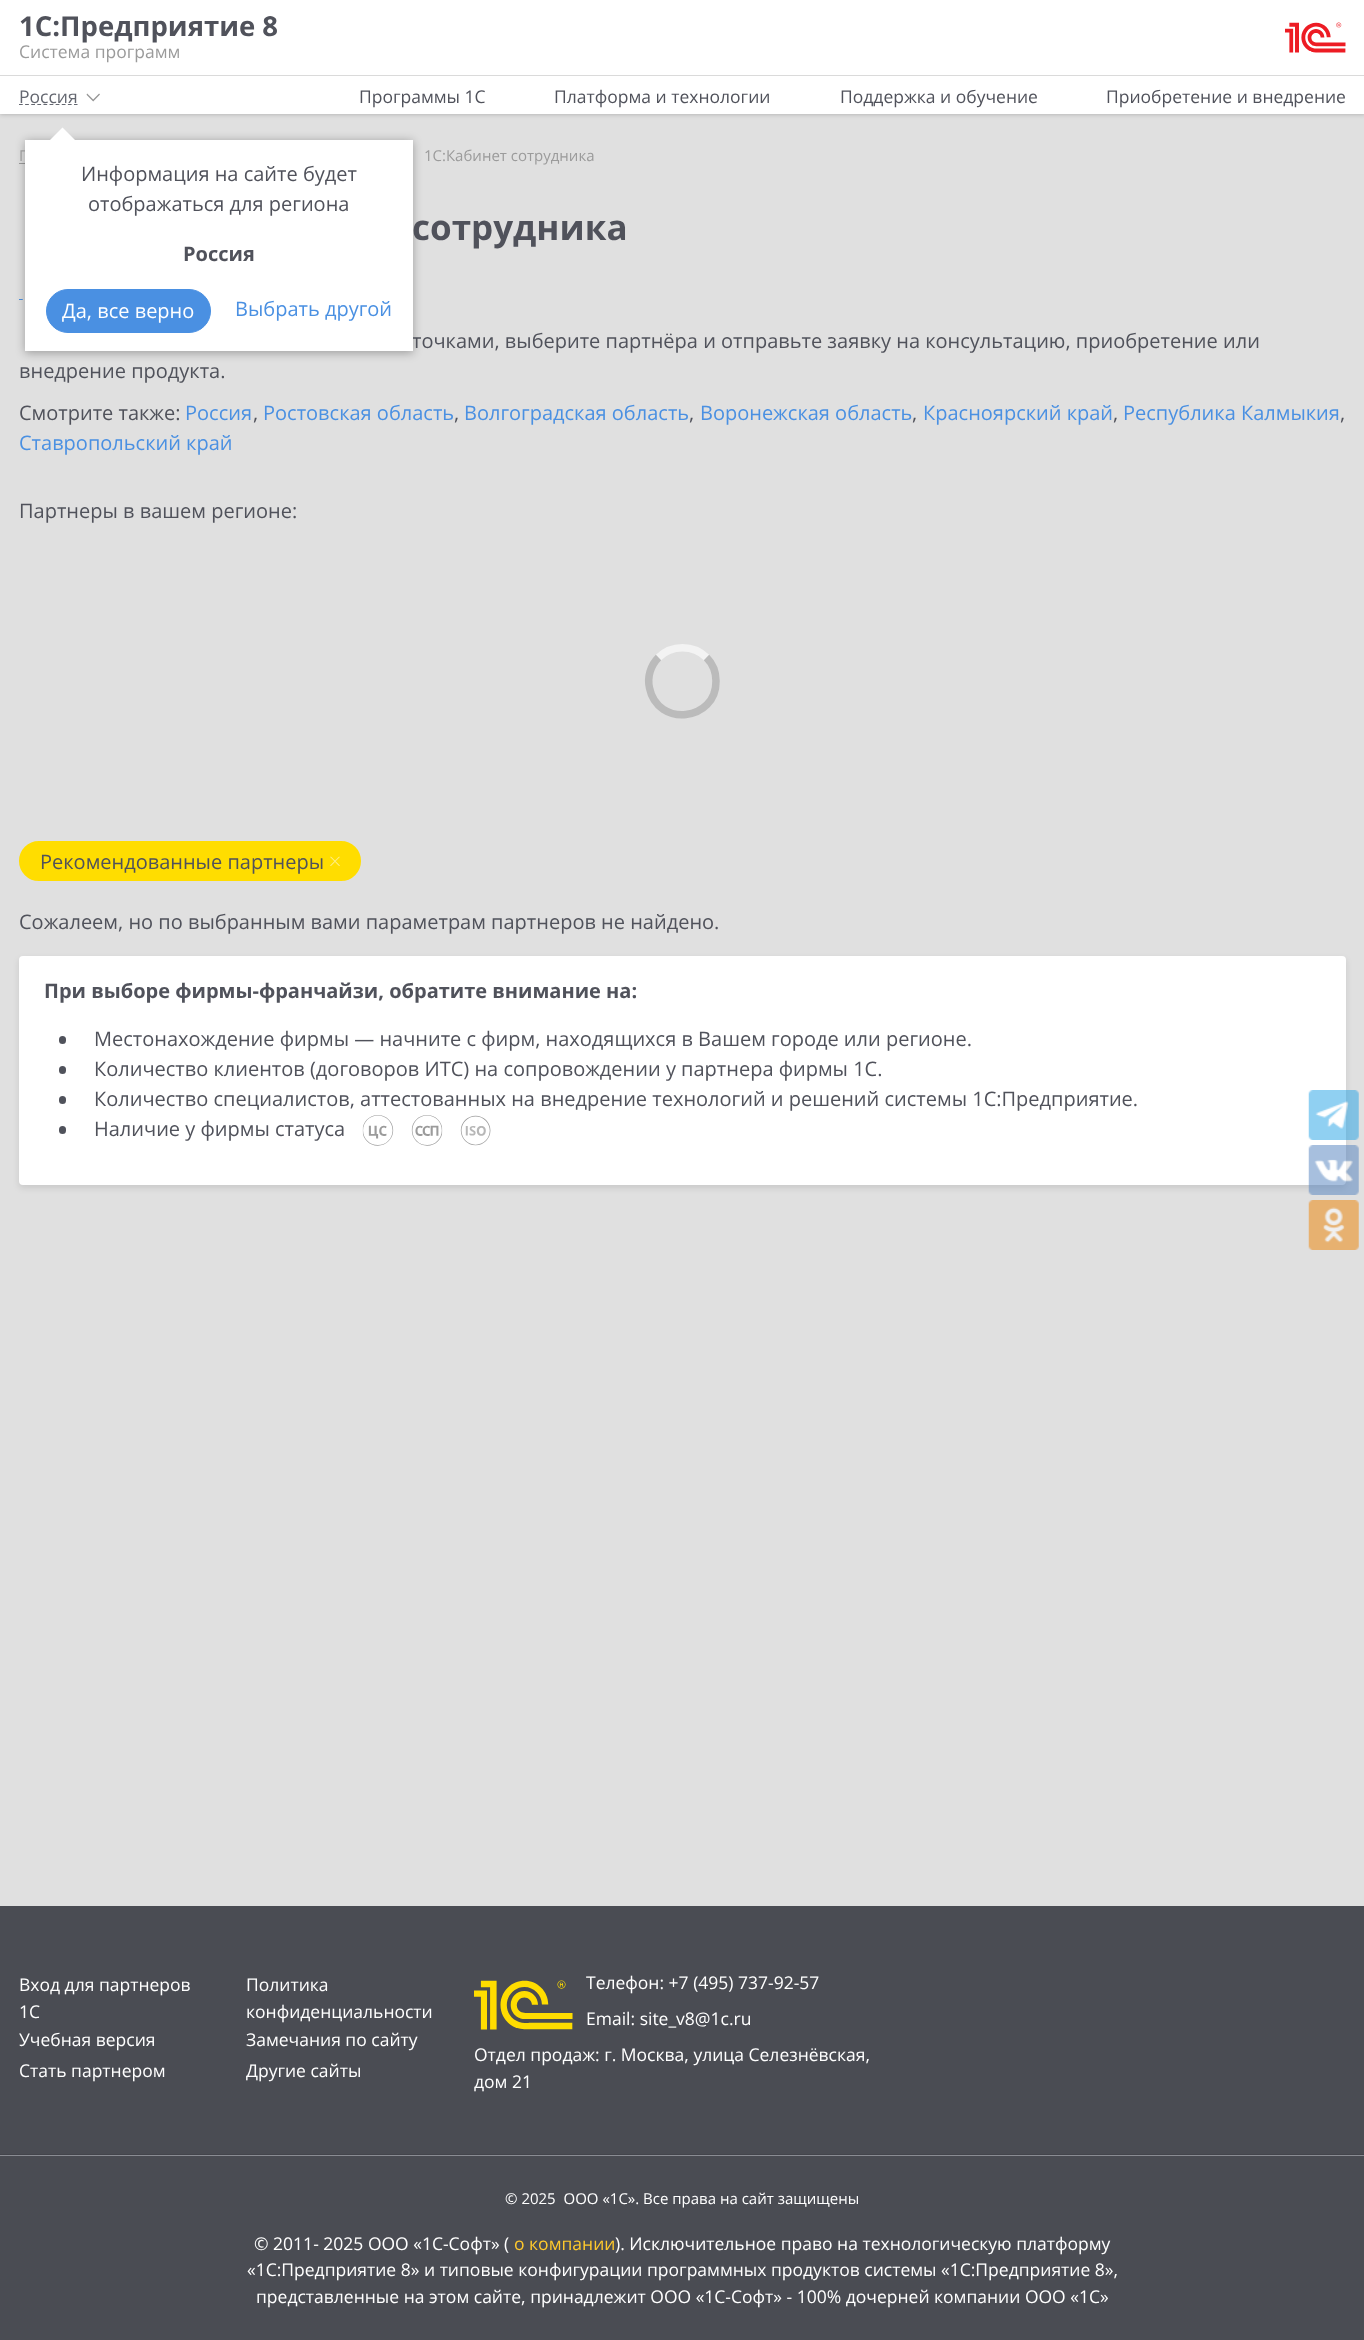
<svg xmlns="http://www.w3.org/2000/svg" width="1364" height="2340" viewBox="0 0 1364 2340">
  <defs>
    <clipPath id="clip1"><path d="M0 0H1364V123H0ZM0 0H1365V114H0Z" clip-rule="evenodd"/></clipPath>
  </defs>
  <rect width="100%" height="100%" fill="#fff"/>
  <path d="M0 114h1364v1792H0z" fill="#e0e0e0"/>
  <g clip-path="url(#clip1)">
    <path d="M0 0h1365v114H0z" fill="#00000040" filter="blur(2.5px)"/>
  </g>
  <path d="M0 75h1364v1H0z" fill="#dadada"/>
  <image x="1285" y="22" width="61" height="31" href="img/1.png"/>
  <path d="M19 104.5H77.5" fill="none" stroke="#646770" stroke-width="1.2" stroke-dasharray="3.75 2.36"/>
  <image x="86" y="93" width="14" height="9" href="img/2.png"/>
  <path d="M19 163h6v1H19z" fill="#9b9b9b"/>
  <path d="M19 299.5H265" fill="none" stroke="#4a90e2" stroke-width="1.2" stroke-dasharray="3.75 2.46"/>
  <path d="M25 141h388v212H25z" fill="#0000004d" filter="blur(5px)"/>
  <path d="M75 140H50L62.5 127.5Z" fill="#fff"/>
  <path d="M658.5 657.5C671.5 644.5 693.5 644.5 706.5 657.5" fill="none" stroke="#f3f3f3" stroke-width="7.5"/>
  <path d="M706.5 657.5C712.5 663.5 716 672.5 716 681C716.5 721.5 657.5 727.5 649.5 688C647 677 650.5 665.5 658.5 657.5" fill="none" stroke="#95959580" stroke-width="7.5"/>
  <rect x="20.5" y="842.5" width="339" height="37" rx="18.5" fill="#fd0" stroke="#fd0" stroke-width="3"/>
  <image x="330" y="856" width="10" height="10" href="img/3.png"/>
  <rect x="19" y="959" width="1327" height="229" rx="4" fill="#0000001a" filter="blur(3px)"/>
  <rect x="19" y="956" width="1327" height="229" rx="4" fill="#fff"/>
  <rect x="59" y="1036" width="7" height="8" rx="3.5" fill="#50525b"/>
  <rect x="59" y="1066" width="7" height="8" rx="3.5" fill="#50525b"/>
  <rect x="59" y="1096" width="7" height="8" rx="3.5" fill="#50525b"/>
  <rect x="59" y="1126" width="7" height="8" rx="3.5" fill="#50525b"/>
  <image x="362" y="1115" width="32" height="31" href="img/4.png"/>
  <image x="411" y="1115" width="32" height="31" href="img/5.png"/>
  <image x="460" y="1115" width="31" height="31" href="img/6.png"/>
  <image x="1308" y="1090" width="51" height="50" href="img/7.png"/>
  <image x="1308" y="1145" width="51" height="50" href="img/8.png"/>
  <image x="1308" y="1200" width="51" height="50" href="img/9.png"/>
  <path d="M0 1906h1364v434H0z" fill="#4a4c53"/>
  <image x="474" y="1980" width="99" height="50" href="img/10.png"/>
  <path d="M0 2154h1364v1H0z" fill="#43444b"/>
  <path d="M0 2155h1364v1H0z" fill="#8a8c93"/>
  <text x="19" y="36" font-family="Open Sans" font-size="27.5" font-weight="bold" fill="#50525b">1С:Предприятие 8</text>
  <text x="19" y="58" font-family="Open Sans" font-size="17.5" fill="#9b9b9b">Система программ</text>
  <text x="19" y="103" font-family="Open Sans" font-size="17.5" fill="#646770">Россия</text>
  <g font-family="Open Sans" font-size="17.5" fill="#50525b">
    <text x="359" y="103">Программы 1С</text>
    <text x="554" y="103">Платформа и технологии</text>
    <text x="840" y="103">Поддержка и обучение</text>
    <text x="1106" y="103">Приобретение и внедрение</text>
  </g>
  <g font-family="Open Sans" font-size="15" fill="#9b9b9b">
    <text x="19" y="161">Г</text>
    <text x="424" y="161">1С:Кабинет сотрудника</text>
  </g>
  <text x="412" y="240" font-family="Open Sans" font-size="35" font-weight="bold" fill="#50525b">сотрудника</text>
  <text x="412" y="348" font-family="Open Sans" font-size="20" fill="#50525b">точками, выберите партнёра и отправьте заявку на консультацию, приобретение или</text>
  <path d="M25 140h388v211H25z" fill="#fff"/>
  <text x="235" y="316" font-family="Open Sans" font-size="20" fill="#4a90e2">Выбрать другой</text>
  <rect x="46.5" y="289.5" width="164" height="43" rx="21.5" fill="#4a90e2" stroke="#4a90e2"/>
  <text x="62" y="318" font-family="Open Sans" font-size="20" fill="#fff">Да, все верно</text>
  <text x="183" y="261" font-family="Open Sans" font-size="20" font-weight="bold" fill="#50525b">Россия</text>
  <g font-family="Open Sans" font-size="20" fill="#50525b">
    <text x="88" y="211">отображаться для региона</text>
    <text x="81" y="181">Информация на сайте будет</text>
    <text x="19" y="378">внедрение продукта.</text>
    <text x="19" y="420">Смотрите также:</text>
  </g>
  <text x="185" y="420" font-family="Open Sans" font-size="20" fill="#4a90e2">Россия</text>
  <text x="253" y="420" font-family="Open Sans" font-size="20" fill="#50525b">,</text>
  <text x="263" y="420" font-family="Open Sans" font-size="20" fill="#4a90e2">Ростовская область</text>
  <text x="454" y="420" font-family="Open Sans" font-size="20" fill="#50525b">,</text>
  <text x="464" y="420" font-family="Open Sans" font-size="20" fill="#4a90e2">Волгоградская область</text>
  <text x="689" y="420" font-family="Open Sans" font-size="20" fill="#50525b">,</text>
  <text x="700" y="420" font-family="Open Sans" font-size="20" fill="#4a90e2">Воронежская область</text>
  <text x="912" y="420" font-family="Open Sans" font-size="20" fill="#50525b">,</text>
  <text x="923" y="420" font-family="Open Sans" font-size="20" fill="#4a90e2">Красноярский край</text>
  <text x="1113" y="420" font-family="Open Sans" font-size="20" fill="#50525b">,</text>
  <text x="1123" y="420" font-family="Open Sans" font-size="20" fill="#4a90e2">Республика Калмыкия</text>
  <text x="1340" y="420" font-family="Open Sans" font-size="20" fill="#50525b">,</text>
  <text x="19" y="450" font-family="Open Sans" font-size="20" fill="#4a90e2">Ставропольский край</text>
  <g font-family="Open Sans" font-size="20" fill="#50525b">
    <text x="19" y="518">Партнеры в вашем регионе:</text>
    <text x="40" y="869">Рекомендованные партнеры</text>
    <text x="19" y="929">Сожалеем, но по выбранным вами параметрам партнеров не найдено.</text>
  </g>
  <text x="44" y="998" font-family="Open Sans" font-size="20" font-weight="bold" fill="#50525b">При выборе фирмы-франчайзи, обратите внимание на:</text>
  <g font-family="Open Sans" font-size="20" fill="#50525b">
    <text x="94" y="1046">Местонахождение фирмы — начните с фирм, находящихся в Вашем городе или регионе.</text>
    <text x="94" y="1076">Количество клиентов (договоров ИТС) на сопровождении у партнера фирмы 1С.</text>
    <text x="94" y="1106">Количество специалистов, аттестованных на внедрение технологий и решений системы 1С:Предприятие.</text>
    <text x="94" y="1136">Наличие у фирмы статуса</text>
  </g>
  <g font-family="Open Sans" font-size="17.5" fill="#fff">
    <text x="19" y="1991">Вход для партнеров</text>
    <text x="19" y="2018">1С</text>
    <text x="19" y="2046">Учебная версия</text>
    <text x="19" y="2077">Стать партнером</text>
    <text x="246" y="1991">Политика</text>
    <text x="246" y="2018">конфиденциальности</text>
    <text x="246" y="2046">Замечания по сайту</text>
    <text x="246" y="2077">Другие сайты</text>
    <text x="586" y="1989">Телефон: +7 (495) 737-92-57</text>
    <text x="586" y="2025">Email: site_v8@1c.ru</text>
    <text x="474" y="2061">Отдел продаж: г. Москва, улица Селезнёвская,</text>
    <text x="474" y="2088">дом 21</text>
  </g>
  <text x="505" y="2204" font-family="Open Sans" font-size="15" fill="#fff" xml:space="preserve">© 2025  ООО «1С». Все права на сайт защищены</text>
  <text x="254" y="2250" font-family="Open Sans" font-size="17.5" fill="#fff">© 2011- 2025 ООО «1С-Софт» (</text>
  <text x="514" y="2250" font-family="Open Sans" font-size="17.5" fill="#ffc92c">о компании</text>
  <g font-family="Open Sans" font-size="17.5" fill="#fff">
    <text x="615" y="2250">). Исключительное право на технологическую платформу</text>
    <text x="247" y="2276">«1С:Предприятие 8» и типовые конфигурации программных продуктов системы «1С:Предприятие 8»,</text>
    <text x="256" y="2303">представленные на этом сайте, принадлежит ООО «1С-Софт» - 100% дочерней компании ООО «1С»</text>
  </g>
</svg>
